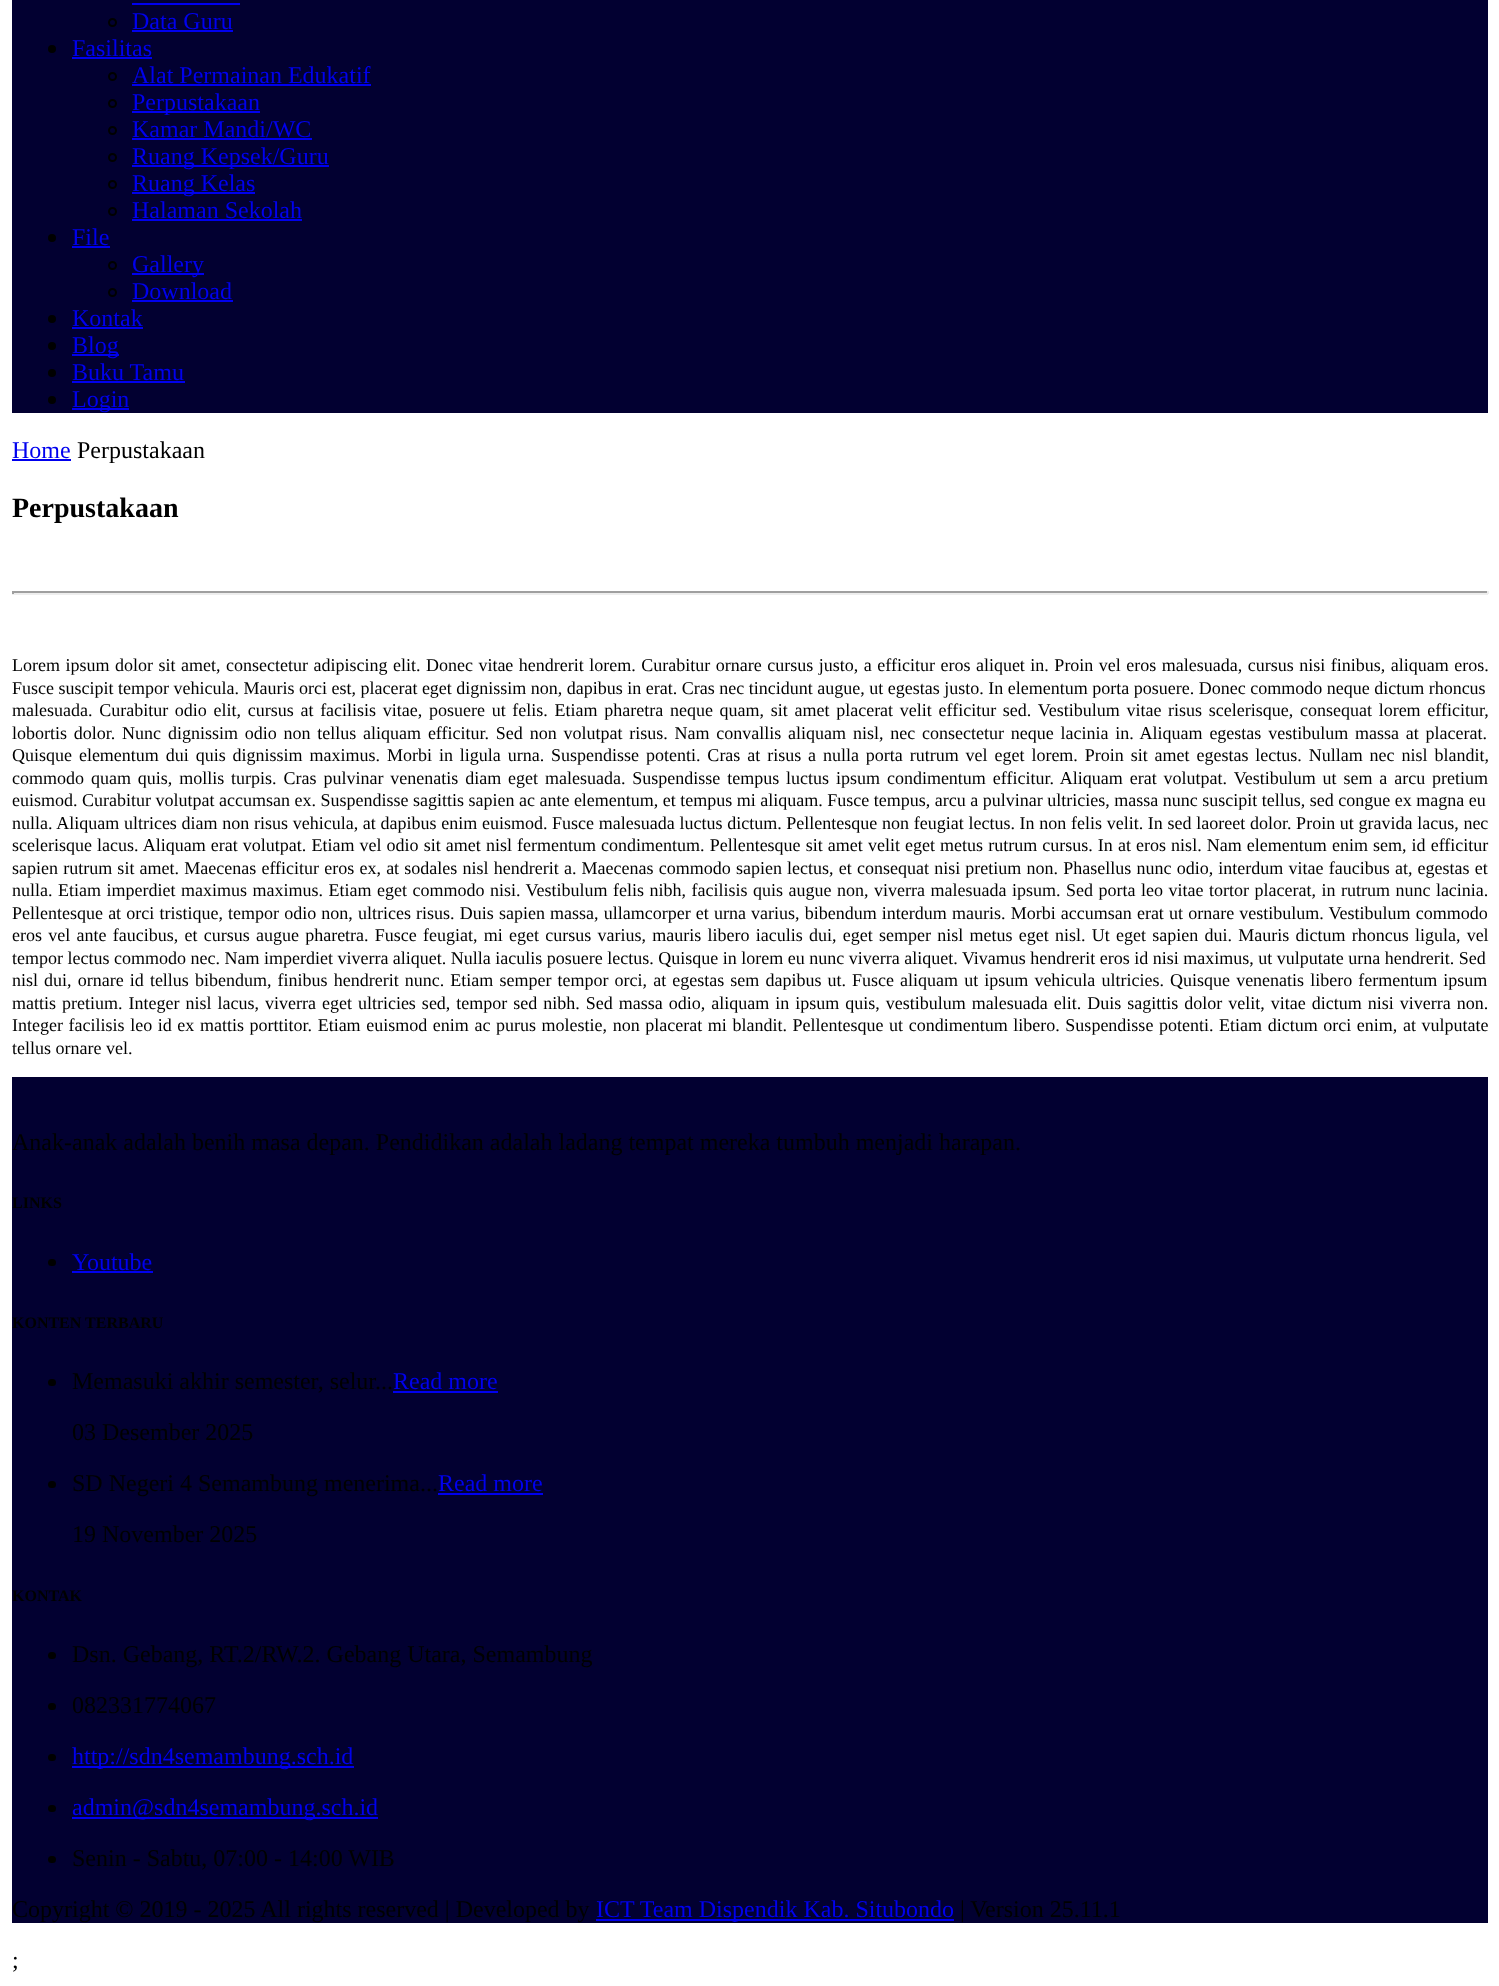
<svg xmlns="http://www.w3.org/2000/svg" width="1499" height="1986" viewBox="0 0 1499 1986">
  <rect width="100%" height="100%" fill="#fff"/>
  <path d="M12 0h1476v413H12z" fill="#020031"/>
  <path d="M132 3h108v2H132z" fill="#00e"/>
  <circle cx="112.5" cy="22.5" r="3.5" fill="none" stroke="#000" stroke-width="2"/>
  <path d="M132 30h101v2H132z" fill="#00e"/>
  <circle cx="52" cy="49" r="4" fill="#000"/>
  <path d="M72 57h80v2H72z" fill="#00e"/>
  <circle cx="112.5" cy="76.5" r="3.5" fill="none" stroke="#000" stroke-width="2"/>
  <path d="M132 84h239v2H132z" fill="#00e"/>
  <circle cx="112.5" cy="103.5" r="3.5" fill="none" stroke="#000" stroke-width="2"/>
  <path d="M132 111h128v2H132z" fill="#00e"/>
  <circle cx="112.5" cy="130.5" r="3.5" fill="none" stroke="#000" stroke-width="2"/>
  <path d="M132 138h180v2H132z" fill="#00e"/>
  <circle cx="112.5" cy="157.5" r="3.5" fill="none" stroke="#000" stroke-width="2"/>
  <path d="M132 165h197v2H132z" fill="#00e"/>
  <circle cx="112.5" cy="184.5" r="3.5" fill="none" stroke="#000" stroke-width="2"/>
  <path d="M132 192h123v2H132z" fill="#00e"/>
  <circle cx="112.5" cy="211.5" r="3.5" fill="none" stroke="#000" stroke-width="2"/>
  <path d="M132 219h170v2H132z" fill="#00e"/>
  <circle cx="52" cy="238" r="4" fill="#000"/>
  <path d="M72 246h38v2H72z" fill="#00e"/>
  <circle cx="112.5" cy="265.5" r="3.5" fill="none" stroke="#000" stroke-width="2"/>
  <path d="M132 273h72v2H132z" fill="#00e"/>
  <circle cx="112.5" cy="292.5" r="3.5" fill="none" stroke="#000" stroke-width="2"/>
  <path d="M132 300h101v2H132z" fill="#00e"/>
  <circle cx="52" cy="319" r="4" fill="#000"/>
  <path d="M72 327h71v2H72z" fill="#00e"/>
  <circle cx="52" cy="346" r="4" fill="#000"/>
  <path d="M72 354h47v2H72z" fill="#00e"/>
  <circle cx="52" cy="373" r="4" fill="#000"/>
  <path d="M72 381h113v2H72z" fill="#00e"/>
  <circle cx="52" cy="400" r="4" fill="#000"/>
  <path d="M72 408h57v2H72z" fill="#00e"/>
  <path d="M12 459h59v2H12z" fill="#00e"/>
  <path d="M12 591h1476v2H12z" fill="#9f9f9f"/>
  <path d="M1487 591h2v3H1487z" fill="#eee"/>
  <path d="M12 593h1476v2H12z" fill="#eee"/>
  <path d="M12 591h2v3H12z" fill="#9f9f9f"/>
  <path d="M12 1077h1476v846H12z" fill="#020031"/>
  <rect x="48" y="1259" width="8" height="7" rx="3.5" fill="#000"/>
  <path d="M72 1271h81v2H72z" fill="#00e"/>
  <rect x="48" y="1379" width="8" height="7" rx="3.5" fill="#000"/>
  <path d="M393 1391h105v2H393z" fill="#00e"/>
  <rect x="48" y="1481" width="8" height="7" rx="3.5" fill="#000"/>
  <path d="M438 1493h105v2H438z" fill="#00e"/>
  <rect x="48" y="1652" width="8" height="7" rx="3.5" fill="#000"/>
  <rect x="48" y="1703" width="8" height="7" rx="3.5" fill="#000"/>
  <rect x="48" y="1754" width="8" height="7" rx="3.5" fill="#000"/>
  <path d="M72 1766h282v2H72z" fill="#00e"/>
  <rect x="48" y="1805" width="8" height="7" rx="3.5" fill="#000"/>
  <path d="M72 1817h306v2H72z" fill="#00e"/>
  <rect x="48" y="1856" width="8" height="7" rx="3.5" fill="#000"/>
  <path d="M596 1919h358v2H596z" fill="#00e"/>
  <g font-family="Liberation Serif" font-size="24" fill="#00e">
    <text x="132" y="29">Data Guru</text>
    <text x="72" y="56">Fasilitas</text>
    <text x="132" y="83">Alat Permainan Edukatif</text>
    <text x="132" y="110">Perpustakaan</text>
    <text x="132" y="137">Kamar Mandi/WC</text>
    <text x="132" y="164">Ruang Kepsek/Guru</text>
    <text x="132" y="191">Ruang Kelas</text>
    <text x="132" y="218">Halaman Sekolah</text>
    <text x="72" y="245">File</text>
    <text x="132" y="272">Gallery</text>
    <text x="132" y="299">Download</text>
    <text x="72" y="326">Kontak</text>
    <text x="72" y="353">Blog</text>
    <text x="72" y="380">Buku Tamu</text>
    <text x="72" y="407">Login</text>
    <text x="12" y="458">Home</text>
  </g>
  <text x="77" y="458" font-family="Liberation Serif" font-size="24" fill="#000">Perpustakaan</text>
  <text x="12" y="517" font-family="Liberation Serif" font-size="28" font-weight="bold" fill="#000">Perpustakaan</text>
  <g font-family="Liberation Serif" font-size="18" fill="#000">
    <text x="12" y="671" word-spacing="1">Lorem ipsum dolor sit amet, consectetur adipiscing elit. Donec vitae hendrerit lorem. Curabitur ornare cursus justo, a efficitur eros aliquet in. Proin vel eros malesuada, cursus nisi finibus, aliquam eros.</text>
    <text x="12" y="694">Fusce suscipit tempor vehicula. Mauris orci est, placerat eget dignissim non, dapibus in erat. Cras nec tincidunt augue, ut egestas justo. In elementum porta posuere. Donec commodo neque dictum rhoncus</text>
    <text x="12" y="716" word-spacing="2.2">malesuada. Curabitur odio elit, cursus at facilisis vitae, posuere ut felis. Etiam pharetra neque quam, sit amet placerat velit efficitur sed. Vestibulum vitae risus scelerisque, consequat lorem efficitur,</text>
    <text x="12" y="739" word-spacing="2.3">lobortis dolor. Nunc dignissim odio non tellus aliquam efficitur. Sed non volutpat risus. Nam convallis aliquam nisl, nec consectetur neque lacinia in. Aliquam egestas vestibulum massa at placerat.</text>
    <text x="12" y="761" word-spacing="2.4">Quisque elementum dui quis dignissim maximus.</text>
    <text x="387" y="761" word-spacing="2.4">Morbi in ligula urna. Suspendisse potenti. Cras at risus a nulla porta rutrum vel eget lorem. Proin sit amet egestas lectus. Nullam nec nisl blandit,</text>
    <text x="12" y="784" word-spacing="2.4">commodo quam quis, mollis turpis. Cras pulvinar venenatis diam eget malesuada. Suspendisse tempus luctus ipsum condimentum efficitur. Aliquam erat volutpat. Vestibulum ut sem a arcu pretium</text>
    <text x="12" y="806">euismod. Curabitur volutpat accumsan ex. Suspendisse sagittis sapien ac ante elementum, et tempus mi aliquam. Fusce tempus, arcu a pulvinar ultricies, massa nunc suscipit tellus, sed congue ex magna eu</text>
    <text x="12" y="829" word-spacing="0.2">nulla. Aliquam ultrices diam non risus vehicula, at dapibus enim euismod. Fusce malesuada luctus dictum. Pellentesque non feugiat lectus. In non felis velit. In sed laoreet dolor. Proin ut gravida lacus, nec</text>
    <text x="12" y="851" word-spacing="0.6">scelerisque lacus. Aliquam erat volutpat. Etiam vel odio sit amet nisl fermentum condimentum. Pellentesque sit amet velit eget metus rutrum cursus. In at eros nisl. Nam elementum enim sem, id efficitur</text>
    <text x="12" y="874" word-spacing="0.7">sapien rutrum sit amet. Maecenas efficitur eros ex, at sodales nisl hendrerit a. Maecenas commodo sapien lectus, et consequat nisi pretium non. Phasellus nunc odio, interdum vitae faucibus at, egestas et</text>
    <text x="12" y="896" word-spacing="1">nulla. Etiam imperdiet maximus maximus. Etiam eget commodo nisi. Vestibulum felis nibh, facilisis quis augue non, viverra malesuada ipsum.</text>
    <text x="1066" y="896" word-spacing="1">Sed porta leo vitae tortor placerat, in rutrum nunc lacinia.</text>
    <text x="12" y="919" word-spacing="0.65">Pellentesque at orci tristique, tempor odio non, ultrices risus. Duis sapien massa, ullamcorper et urna varius, bibendum interdum mauris. Morbi accumsan erat ut ornare vestibulum. Vestibulum commodo</text>
    <text x="12" y="941" word-spacing="1.75">eros vel ante faucibus, et cursus augue pharetra. Fusce feugiat, mi eget cursus varius, mauris libero iaculis dui, eget semper nisl metus eget nisl. Ut eget sapien dui. Mauris dictum rhoncus ligula, vel</text>
    <text x="12" y="964">tempor lectus commodo nec. Nam imperdiet viverra aliquet. Nulla iaculis posuere lectus. Quisque in lorem eu nunc viverra aliquet. Vivamus hendrerit eros id nisi maximus, ut vulputate urna hendrerit. Sed</text>
    <text x="12" y="986" word-spacing="1.6">nisl dui, ornare id tellus bibendum, finibus hendrerit nunc. Etiam semper tempor orci, at egestas sem dapibus ut.</text>
    <text x="852" y="986" word-spacing="1.6">Fusce aliquam ut ipsum vehicula ultricies. Quisque venenatis libero fermentum ipsum</text>
    <text x="12" y="1009" word-spacing="1.5">mattis pretium. Integer nisl lacus, viverra eget ultricies sed, tempor sed nibh. Sed massa odio, aliquam in ipsum quis, vestibulum malesuada elit. Duis sagittis dolor velit, vitae dictum nisi viverra non.</text>
    <text x="12" y="1031" word-spacing="1.1">Integer facilisis leo id ex mattis porttitor. Etiam euismod enim ac purus molestie, non placerat mi blandit. Pellentesque ut condimentum libero. Suspendisse potenti. Etiam dictum orci enim, at vulputate</text>
    <text x="12" y="1054">tellus ornare vel.</text>
  </g>
  <text x="12" y="1150" font-family="Liberation Serif" font-size="24" fill="#000">Anak-anak adalah benih masa depan. Pendidikan adalah ladang tempat mereka tumbuh menjadi harapan.</text>
  <text x="12" y="1208" font-family="Liberation Serif" font-size="16" font-weight="bold" fill="#000">LINKS</text>
  <text x="72" y="1270" font-family="Liberation Serif" font-size="24" fill="#00e">Youtube</text>
  <text x="12" y="1328" font-family="Liberation Serif" font-size="16" font-weight="bold" fill="#000">KONTEN TERBARU</text>
  <text x="72" y="1389" font-family="Liberation Serif" font-size="24" fill="#000">Memasuki akhir semester, selur...</text>
  <text x="393" y="1389" font-family="Liberation Serif" font-size="24" fill="#00e">Read more</text>
  <g font-family="Liberation Serif" font-size="24" fill="#000">
    <text x="72" y="1440">03 Desember 2025</text>
    <text x="72" y="1491">SD Negeri 4 Semambung menerima...</text>
  </g>
  <text x="438" y="1491" font-family="Liberation Serif" font-size="24" fill="#00e">Read more</text>
  <text x="72" y="1542" font-family="Liberation Serif" font-size="24" fill="#000">19 November 2025</text>
  <text x="12" y="1601" font-family="Liberation Serif" font-size="16" font-weight="bold" fill="#000">KONTAK</text>
  <g font-family="Liberation Serif" font-size="24" fill="#000">
    <text x="72" y="1662">Dsn. Gebang, RT.2/RW.2. Gebang Utara, Semambung</text>
    <text x="72" y="1713">082331774067</text>
  </g>
  <g font-family="Liberation Serif" font-size="24" fill="#00e">
    <text x="72" y="1764">http://sdn4semambung.sch.id</text>
    <text x="72" y="1815">admin@sdn4semambung.sch.id</text>
  </g>
  <g font-family="Liberation Serif" font-size="24" fill="#000">
    <text x="72" y="1866">Senin - Sabtu, 07:00 - 14:00 WIB</text>
    <text x="12" y="1917">Copyright © 2019 - 2025 All rights reserved | Developed by</text>
  </g>
  <text x="596" y="1917" font-family="Liberation Serif" font-size="24" fill="#00e">ICT Team Dispendik Kab. Situbondo</text>
  <g font-family="Liberation Serif" font-size="24" fill="#000">
    <text x="960" y="1917">| Version 25.11.1</text>
    <text x="12" y="1968">;</text>
  </g>
</svg>
